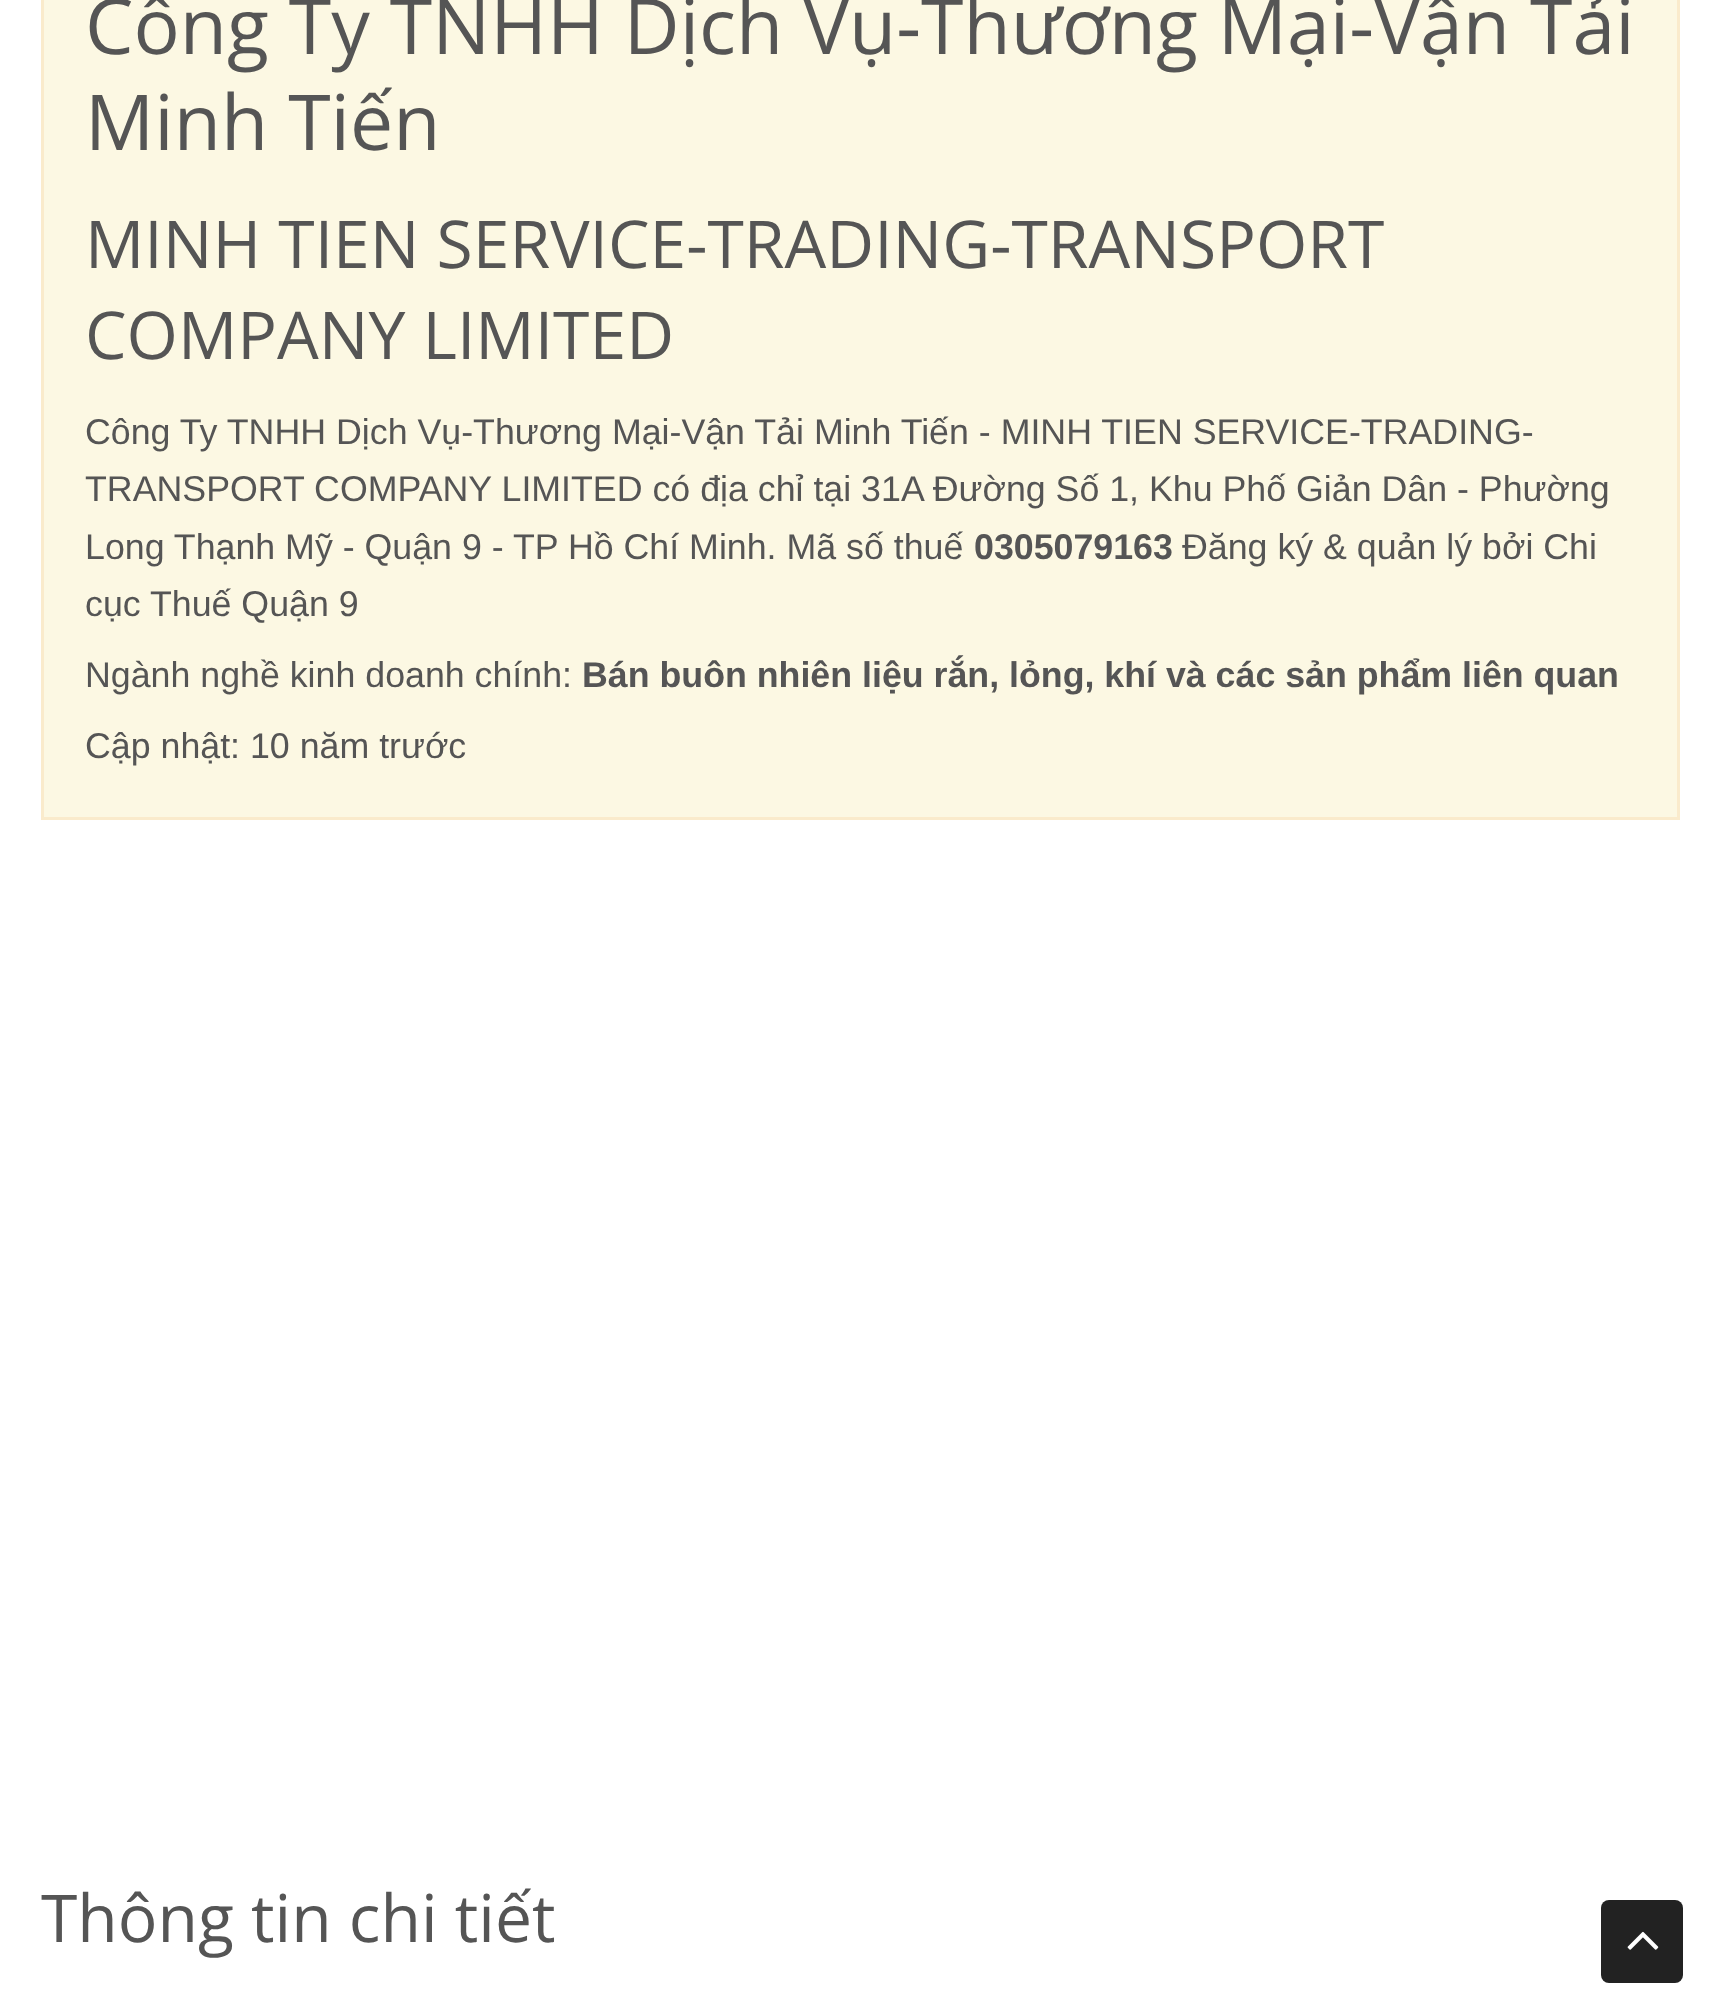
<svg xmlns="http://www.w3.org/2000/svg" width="1719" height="2011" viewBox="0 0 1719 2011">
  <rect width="100%" height="100%" fill="#fff"/>
  <path d="M42.5 -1.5h1636v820H42.5z" fill="#fcf8e3" stroke="#faebcc" stroke-width="3"/>
  <rect x="1601" y="1900" width="82" height="83" rx="8" fill="#222"/>
  <image x="1627" y="1931" width="32" height="19" href="img/1.png"/>
  <g font-family="Open Sans" font-size="77" fill="#555">
    <text x="85" y="54">Công Ty TNHH Dịch Vụ-Thương Mại-Vận Tải</text>
    <text x="85" y="150">Minh Tiến</text>
  </g>
  <g font-family="Open Sans" font-size="66" fill="#555">
    <text x="85" y="268">MINH TIEN SERVICE-TRADING-TRANSPORT</text>
    <text x="85" y="359">COMPANY LIMITED</text>
  </g>
  <g font-family="Liberation Sans" font-size="35.75" fill="#555">
    <text x="85" y="444">Công Ty TNHH Dịch Vụ-Thương Mại-Vận Tải Minh Tiến - MINH TIEN SERVICE-TRADING-</text>
    <text x="85" y="501">TRANSPORT COMPANY LIMITED có địa chỉ tại 31A Đường Số 1, Khu Phố Giản Dân - Phường</text>
    <text x="85" y="559">Long Thạnh Mỹ - Quận 9 - TP Hồ Chí Minh. Mã số thuế</text>
  </g>
  <text x="974" y="559" font-family="Liberation Sans" font-size="35.75" font-weight="bold" fill="#555">0305079163</text>
  <g font-family="Liberation Sans" font-size="35.75" fill="#555">
    <text x="1182" y="559">Đăng ký &amp; quản lý bởi Chi</text>
    <text x="85" y="616">cục Thuế Quận 9</text>
    <text x="85" y="687">Ngành nghề kinh doanh chính:</text>
  </g>
  <text x="582" y="687" font-family="Liberation Sans" font-size="35.75" font-weight="bold" fill="#555">Bán buôn nhiên liệu rắn, lỏng, khí và các sản phẩm liên quan</text>
  <text x="85" y="758" font-family="Liberation Sans" font-size="35.75" fill="#555">Cập nhật: 10 năm trước</text>
  <text x="41" y="1942" font-family="Open Sans" font-size="66" fill="#555">Thông tin chi tiết</text>
</svg>
